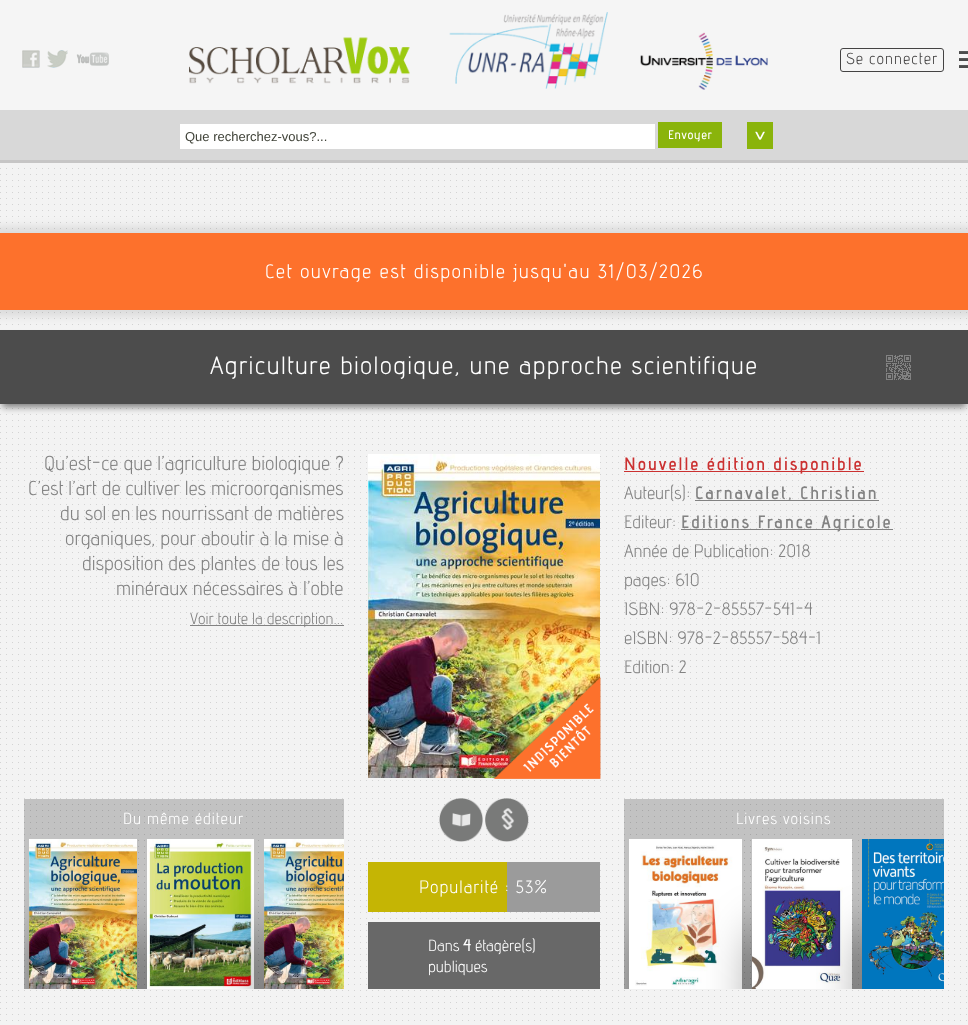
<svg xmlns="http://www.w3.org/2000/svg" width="968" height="1025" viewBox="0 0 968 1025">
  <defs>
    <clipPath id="clip1"><path d="M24 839h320v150H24z"/></clipPath>
    <clipPath id="clip2"><path d="M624 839h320v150H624z"/></clipPath>
  </defs>
  <rect width="100%" height="100%" fill="#fff"/>
  <image x="0" y="163" width="968" height="862" href="img/1.png"/>
  <path d="M0 0h968v110H0z" fill="#f5f5f5"/>
  <image x="22" y="50" width="18" height="18" href="img/2.png"/>
  <image x="47" y="50" width="21" height="18" href="img/3.png"/>
  <image x="76" y="52" width="33" height="14" href="img/4.png"/>
  <image x="189" y="12" width="579" height="78" href="img/5.png"/>
  <rect x="840.5" y="48.5" width="103" height="23" rx="2.5" fill="none" stroke="#444343"/>
  <image x="959" y="51" width="9" height="17" href="img/6.png"/>
  <path d="M0 110h968v50H0z" fill="#d8d8d8"/>
  <path d="M0 160h968v3H0z" fill="#c6c5c5"/>
  <path d="M180 124h475v25H180z" fill="#fff"/>
  <path d="M658 122h64v26H658z" fill="#8ab40b"/>
  <path d="M747 122h26v27H747z" fill="#8ab40b"/>
  <image x="755" y="131" width="10" height="9" href="img/7.png"/>
  <path d="M-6 227h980v89H-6z" fill="#0000001a" filter="blur(5px)"/>
  <path d="M0 233h968v77H0z" fill="#fd712c"/>
  <path d="M2 337h964v70H2z" fill="#00000080" filter="blur(3.5px)"/>
  <path d="M0 330h968v74H0z" fill="#4c4c4c"/>
  <image x="886" y="355" width="25" height="25" href="img/8.png"/>
  <path d="M190 625h154v1H190z" fill="#828282"/>
  <path d="M24 799h320v190H24z" fill="#00000033"/>
  <g clip-path="url(#clip1)">
    <path d="M34 934h98v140H34z" fill="#00000080" filter="blur(25px)"/>
  </g>
  <image x="29" y="839" width="108" height="150" href="img/9.png"/>
  <g clip-path="url(#clip1)">
    <path d="M152 934h97v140H152z" fill="#00000080" filter="blur(25px)"/>
  </g>
  <image x="147" y="839" width="107" height="150" href="img/10.png"/>
  <g clip-path="url(#clip1)">
    <path d="M269 934h98v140H269z" fill="#00000080" filter="blur(25px)"/>
  </g>
  <image x="264" y="839" width="80" height="150" href="img/11.png"/>
  <path d="M624 471h240v1H624z" fill="#cb3131"/>
  <path d="M695 500h184v1H695z" fill="#828282"/>
  <path d="M681 529h212v1H681z" fill="#828282"/>
  <path d="M624 799h320v190H624z" fill="#00000033"/>
  <g clip-path="url(#clip2)">
    <path d="M634 934h103v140H634z" fill="#00000080" filter="blur(25px)"/>
  </g>
  <image x="629" y="839" width="113" height="150" href="img/12.png"/>
  <g clip-path="url(#clip2)">
    <path d="M757 934h90v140H757z" fill="#00000080" filter="blur(25px)"/>
  </g>
  <image x="752" y="839" width="100" height="150" href="img/13.png"/>
  <g clip-path="url(#clip2)">
    <path d="M867 934h90v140H867z" fill="#00000080" filter="blur(25px)"/>
  </g>
  <image x="862" y="839" width="82" height="150" href="img/14.png"/>
  <image x="368" y="454" width="232" height="324" href="img/15.png"/>
  <image x="492" y="676" width="109" height="103" href="img/16.png"/>
  <image x="439" y="798" width="44" height="44" href="img/17.png"/>
  <image x="485" y="798" width="44" height="44" href="img/18.png"/>
  <path d="M507 862h93v50H507z" fill="#9b9b9b"/>
  <path d="M368 862h139v50H368z" fill="#c5b504"/>
  <path d="M368 922h232v67H368z" fill="#686868"/>
  <text x="846" y="64" font-family="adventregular" font-size="16" letter-spacing="1" fill="#444343">Se connecter</text>
  <text x="185" y="141" font-family="Liberation Sans" font-size="13" fill="#404339">Que recherchez-vous?...</text>
  <text x="668" y="139" font-family="adventregular" font-size="12" font-weight="bold" letter-spacing="1" fill="#fff">Envoyer</text>
  <text x="265" y="278" font-family="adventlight" font-size="18.75" font-weight="bold" letter-spacing="2" fill="#fff">Cet ouvrage est disponible jusqu'au 31/03/2026</text>
  <text x="210" y="374" font-family="adventlight" font-size="24" font-weight="bold" letter-spacing="2" fill="#fff">Agriculture biologique, une approche scientifique</text>
  <g font-family="adventregular" font-size="20" fill="#828282">
    <text x="44" y="470">Qu’est-ce que l’agriculture biologique ?</text>
    <text x="28" y="495">C’est l’art de cultiver les microorganismes</text>
    <text x="60" y="520">du sol en les nourrissant de matières</text>
    <text x="65" y="545">organiques, pour aboutir à la mise à</text>
    <text x="82" y="570">disposition des plantes de tous les</text>
    <text x="116" y="595">minéraux nécessaires à l’obte</text>
  </g>
  <text x="190" y="624" font-family="adventregular" font-size="16" fill="#828282">Voir toute la description...</text>
  <text x="123" y="824" font-family="adventregular" font-size="16" letter-spacing="1" fill="#fff">Du même éditeur</text>
  <text x="624" y="470" font-family="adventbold" font-size="18" font-weight="bold" letter-spacing="2" fill="#cb3131">Nouvelle édition disponible</text>
  <text x="624" y="499" font-family="adventregular" font-size="18" fill="#828282">Auteur(s):</text>
  <text x="695" y="499" font-family="adventbold" font-size="18" font-weight="bold" letter-spacing="2" fill="#828282">Carnavalet, Christian</text>
  <text x="624" y="528" font-family="adventregular" font-size="18" fill="#828282">Editeur:</text>
  <text x="681" y="528" font-family="adventbold" font-size="18" font-weight="bold" letter-spacing="2" fill="#828282">Editions France Agricole</text>
  <g font-family="adventregular" font-size="18" fill="#828282">
    <text x="624" y="557">Année de Publication: 2018</text>
    <text x="624" y="586">pages: 610</text>
    <text x="624" y="615">ISBN: 978-2-85557-541-4</text>
    <text x="624" y="644">eISBN: 978-2-85557-584-1</text>
    <text x="624" y="673">Edition: 2</text>
  </g>
  <text x="736" y="824" font-family="adventregular" font-size="16" letter-spacing="1" fill="#fff">Livres voisins</text>
  <text x="419" y="893" font-family="adventregular" font-size="18" letter-spacing="1" fill="#fff">Popularité : 53%</text>
  <text x="428" y="951" font-family="adventregular" font-size="16" fill="#fff">Dans</text>
  <text x="463" y="951" font-family="adventregular" font-size="16" font-weight="bold" fill="#fff">4</text>
  <g font-family="adventregular" font-size="16" fill="#fff">
    <text x="475" y="951">étagère(s)</text>
    <text x="428" y="972">publiques</text>
  </g>
</svg>
